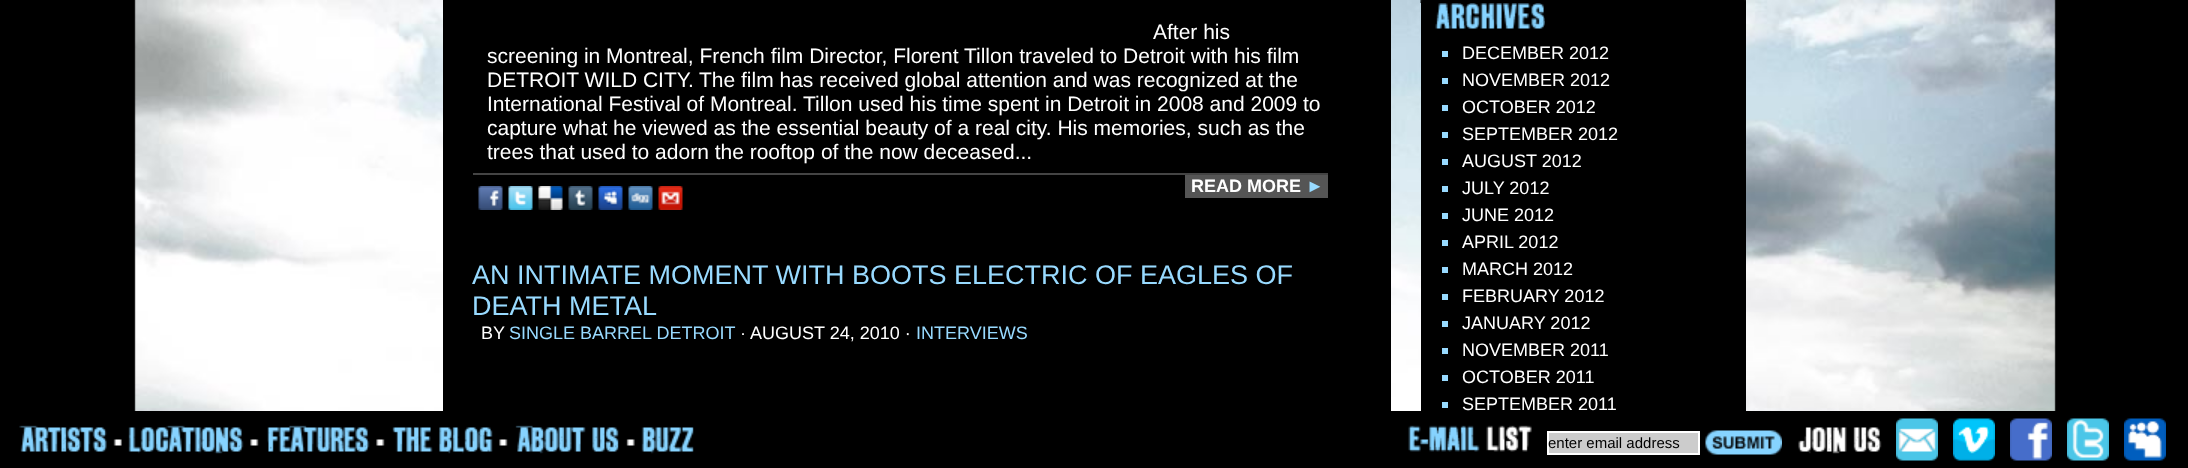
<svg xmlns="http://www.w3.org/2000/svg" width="2188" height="468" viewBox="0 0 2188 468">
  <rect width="100%" height="100%" fill="#000"/>
  <image x="134" y="0" width="1922" height="411" href="img/1.png"/>
  <path d="M443 0h948v411H443z" fill="#000"/>
  <path d="M473 173h855v2H473z" fill="#444"/>
  <image x="478" y="186" width="25" height="24" href="img/2.png"/>
  <image x="508" y="186" width="25" height="24" href="img/3.png"/>
  <image x="538" y="186" width="25" height="24" href="img/4.png"/>
  <image x="568" y="186" width="25" height="24" href="img/5.png"/>
  <image x="598" y="186" width="25" height="24" href="img/6.png"/>
  <image x="628" y="186" width="25" height="24" href="img/7.png"/>
  <image x="658" y="186" width="25" height="24" href="img/8.png"/>
  <path d="M1185 175h143v23H1185z" fill="#555"/>
  <image x="1420" y="0" width="326" height="3" href="img/9.png"/>
  <path d="M1421 3h325v408H1421z" fill="#000"/>
  <image x="1435" y="3" width="110" height="26" href="img/10.png"/>
  <path d="M1442 51h6v6H1442z" fill="#98daff"/>
  <path d="M1442 78h6v6H1442z" fill="#98daff"/>
  <path d="M1442 105h6v6H1442z" fill="#98daff"/>
  <path d="M1442 132h6v6H1442z" fill="#98daff"/>
  <path d="M1442 159h6v6H1442z" fill="#98daff"/>
  <path d="M1442 186h6v6H1442z" fill="#98daff"/>
  <path d="M1442 213h6v6H1442z" fill="#98daff"/>
  <path d="M1442 240h6v6H1442z" fill="#98daff"/>
  <path d="M1442 267h6v6H1442z" fill="#98daff"/>
  <path d="M1442 294h6v6H1442z" fill="#98daff"/>
  <path d="M1442 321h6v6H1442z" fill="#98daff"/>
  <path d="M1442 348h6v6H1442z" fill="#98daff"/>
  <path d="M1442 375h6v6H1442z" fill="#98daff"/>
  <path d="M1442 402h6v6H1442z" fill="#98daff"/>
  <image x="19" y="425" width="88" height="27" href="img/11.png"/>
  <image x="113" y="425" width="146" height="29" href="img/12.png"/>
  <image x="128" y="425" width="116" height="29" href="img/13.png"/>
  <image x="370" y="425" width="15" height="27" href="img/14.png"/>
  <image x="267" y="425" width="103" height="27" href="img/15.png"/>
  <image x="493" y="427" width="15" height="27" href="img/16.png"/>
  <image x="392" y="427" width="101" height="27" href="img/17.png"/>
  <image x="515" y="425" width="104" height="29" href="img/18.png"/>
  <image x="626" y="427" width="68" height="27" href="img/19.png"/>
  <image x="641" y="427" width="53" height="26" href="img/20.png"/>
  <image x="1408" y="425" width="124" height="27" href="img/21.png"/>
  <path d="M1548 432h151v22H1548z" fill="#ccc" stroke="#fff" stroke-width="2"/>
  <image x="1705" y="430" width="77" height="25" href="img/22.png"/>
  <image x="1798" y="427" width="84" height="27" href="img/23.png"/>
  <image x="1896" y="418" width="42" height="43" href="img/24.png"/>
  <image x="1953" y="418" width="42" height="43" href="img/25.png"/>
  <image x="2010" y="418" width="42" height="43" href="img/26.png"/>
  <image x="2067" y="418" width="42" height="43" href="img/27.png"/>
  <image x="2124" y="418" width="42" height="43" href="img/28.png"/>
  <g font-family="Liberation Sans" font-size="21" fill="#fff">
    <text x="1153" y="39">After his</text>
    <text x="487" y="63">screening in Montreal, French film Director, Florent Tillon traveled to Detroit with his film</text>
    <text x="487" y="87">DETROIT WILD CITY.</text>
    <text x="699" y="87">The film has received global attention and was recognized at the</text>
    <text x="487" y="111">International Festival of Montreal.</text>
    <text x="803" y="111">Tillon used his time spent in Detroit in 2008 and 2009 to</text>
    <text x="487" y="135">capture what he viewed as the essential beauty of a real city. His memories, such as the</text>
    <text x="487" y="159">trees that used to adorn the rooftop of the now deceased...</text>
  </g>
  <text x="1191" y="192" font-family="Liberation Sans" font-size="18" font-weight="bold" fill="#fff">READ MORE</text>
  <text x="1306" y="192" font-family="Liberation Sans" font-size="18" font-weight="bold" fill="#98daff">►</text>
  <g font-family="Liberation Sans" font-size="27" fill="#98daff">
    <text x="472" y="284">AN INTIMATE MOMENT WITH BOOTS ELECTRIC OF EAGLES OF</text>
    <text x="472" y="315">DEATH METAL</text>
  </g>
  <text x="481" y="339" font-family="Liberation Sans" font-size="18" fill="#fff">BY</text>
  <text x="509" y="339" font-family="Liberation Sans" font-size="18" fill="#98daff">SINGLE BARREL DETROIT</text>
  <text x="740" y="339" font-family="Liberation Sans" font-size="18" fill="#fff">· AUGUST 24, 2010 ·</text>
  <text x="916" y="339" font-family="Liberation Sans" font-size="18" fill="#98daff">INTERVIEWS</text>
  <g font-family="Liberation Sans" font-size="18" fill="#fff">
    <text x="1462" y="59">DECEMBER 2012</text>
    <text x="1462" y="86">NOVEMBER 2012</text>
    <text x="1462" y="113">OCTOBER 2012</text>
    <text x="1462" y="140">SEPTEMBER 2012</text>
    <text x="1462" y="167">AUGUST 2012</text>
    <text x="1462" y="194">JULY 2012</text>
    <text x="1462" y="221">JUNE 2012</text>
    <text x="1462" y="248">APRIL 2012</text>
    <text x="1462" y="275">MARCH 2012</text>
    <text x="1462" y="302">FEBRUARY 2012</text>
    <text x="1462" y="329">JANUARY 2012</text>
    <text x="1462" y="356">NOVEMBER 2011</text>
    <text x="1462" y="383">OCTOBER 2011</text>
    <text x="1462" y="410">SEPTEMBER 2011</text>
  </g>
  <text x="1548" y="448" font-family="Liberation Sans" font-size="15" fill="#000">enter email address</text>
</svg>
